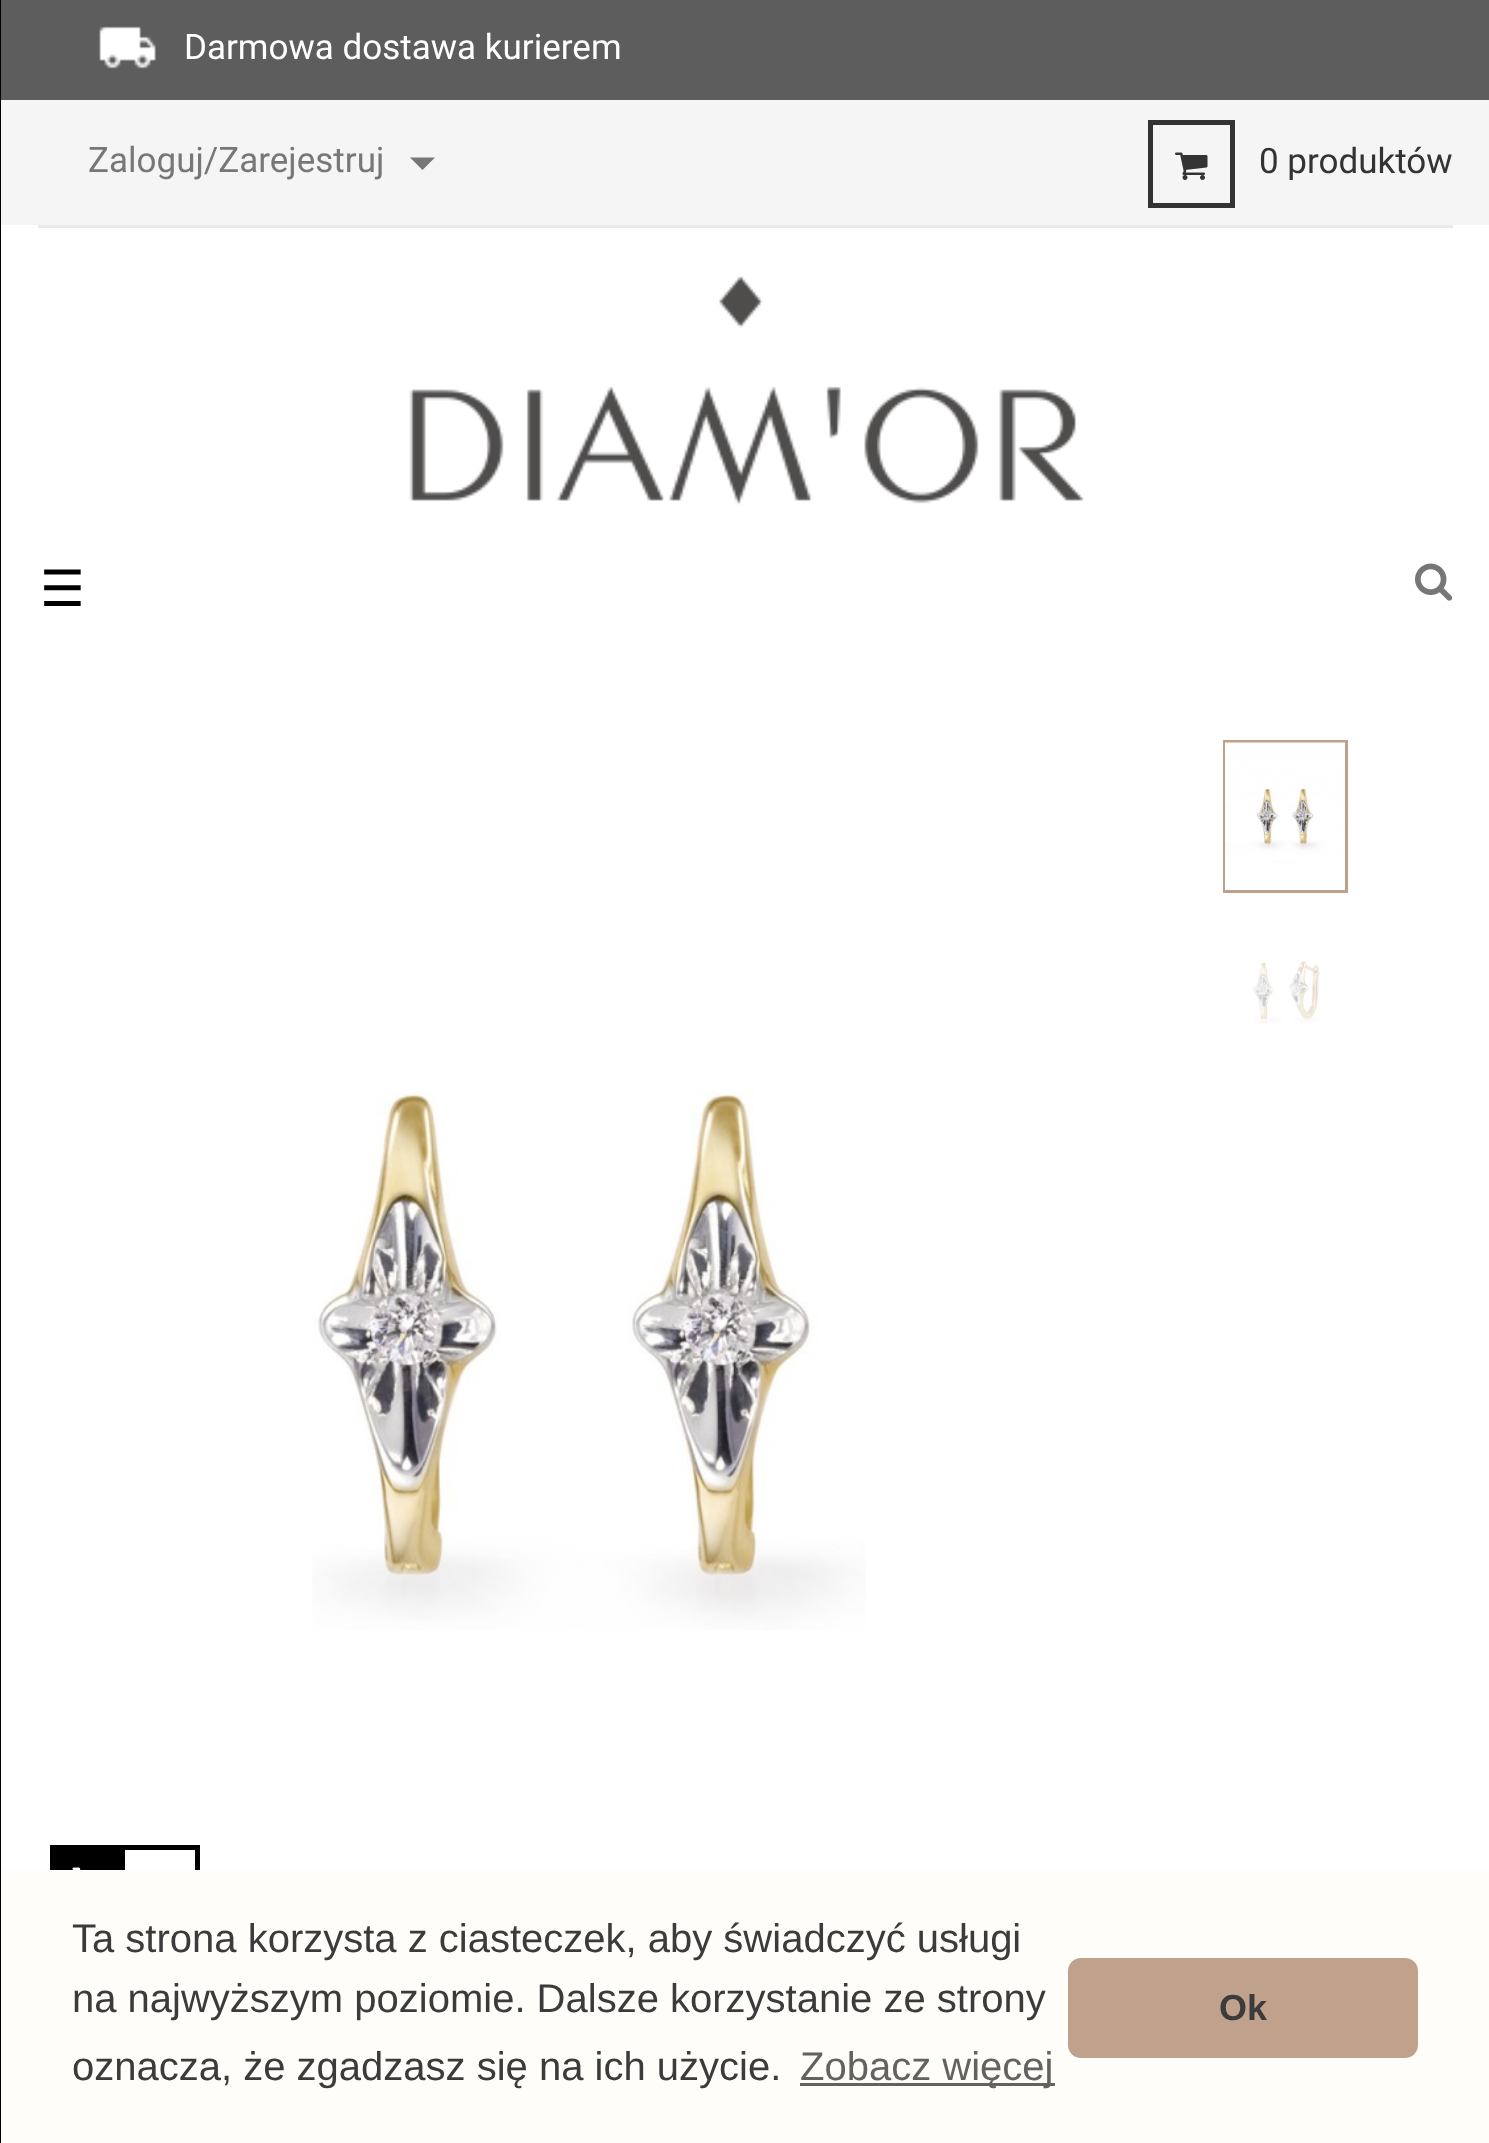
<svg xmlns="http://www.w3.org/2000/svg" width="1489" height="2143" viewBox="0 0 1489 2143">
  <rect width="100%" height="100%" fill="#fff"/>
  <path d="M0 0h1v2143H0z" fill="#000"/>
  <path d="M1 0h1488v100H1z" fill="#5d5d5d"/>
  <image x="99" y="26" width="57" height="43" href="img/1.png"/>
  <path d="M38 225h1415v3H38z" fill="#eaeaea"/>
  <path d="M1 100h1488v125H1z" fill="#f5f5f5"/>
  <path d="M410 157.5H435L422.5 170Z" fill="#777"/>
  <path d="M1150.5 122.5h82v83H1150.5z" fill="none" stroke="#333" stroke-width="5"/>
  <image x="1175" y="152" width="33" height="28" href="img/2.png"/>
  <image x="409" y="276" width="675" height="229" href="img/3.png"/>
  <image x="1415" y="563" width="38" height="38" href="img/4.png"/>
  <path d="M1224.5 741.5h122v150H1224.5z" fill="none" stroke="#bfa08b" stroke-width="3"/>
  <image x="1225" y="742" width="120" height="148" href="img/5.png"/>
  <image x="1253" y="961" width="67" height="63" href="img/6.png"/>
  <image x="312" y="1090" width="554" height="540" href="img/7.png"/>
  <path d="M50 1845h150v25H50z" fill="#000"/>
  <image x="72" y="1867" width="9" height="3" href="img/8.png"/>
  <path d="M125 1850h70v20H125z" fill="#fff"/>
  <path d="M1 1870h1488v273H1z" fill="#fffdfa"/>
  <path d="M800 2083h255v3H800z" fill="#626261"/>
  <rect x="1068" y="1958" width="350" height="100" rx="13" fill="#c0a18c"/>
  <text x="184" y="59" font-family="Roboto" font-size="35" fill="#fff">Darmowa dostawa kurierem</text>
  <text x="88" y="172" font-family="Roboto" font-size="35" fill="#777">Zaloguj/Zarejestruj</text>
  <text x="1259" y="173" font-family="Roboto" font-size="35" fill="#333">0 produktów</text>
  <text x="40" y="606" font-family="DejaVu Sans" font-size="50" fill="#000">☰</text>
  <g font-family="Liberation Sans" font-size="40" fill="#3b3b3b">
    <text x="72" y="1952">Ta strona korzysta z ciasteczek, aby świadczyć usługi</text>
    <text x="72" y="2012">na najwyższym poziomie. Dalsze korzystanie ze strony</text>
    <text x="72" y="2080">oznacza, że zgadzasz się na ich użycie.</text>
  </g>
  <text x="800" y="2080" font-family="Liberation Sans" font-size="40" fill="#626261">Zobacz więcej</text>
  <text x="1219" y="2020" font-family="Liberation Sans" font-size="36" font-weight="bold" fill="#3b3b3b">Ok</text>
</svg>
